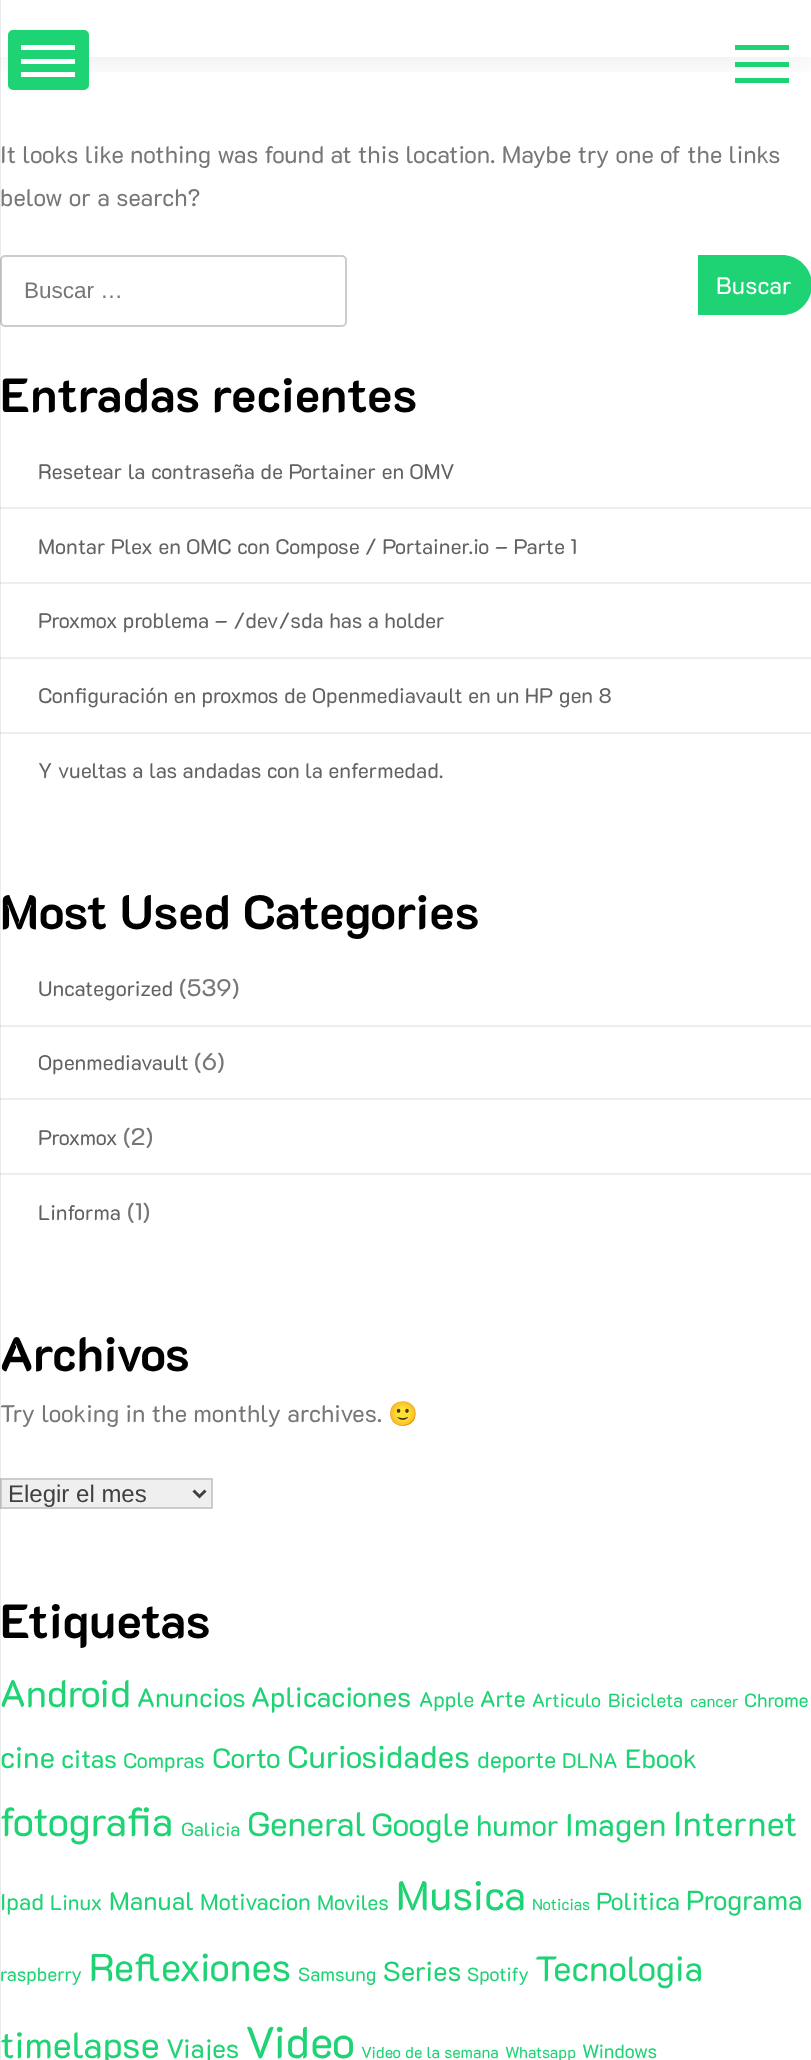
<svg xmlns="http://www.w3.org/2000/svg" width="811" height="2060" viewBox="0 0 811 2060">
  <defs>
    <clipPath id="clip1"><path d="M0 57h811v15H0z"/></clipPath>
  </defs>
  <rect width="100%" height="100%" fill="#fff"/>
  <g clip-path="url(#clip1)">
    <path d="M0 -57h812v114H0z" fill="#00000017" filter="blur(19px)"/>
  </g>
  <rect x="1" y="256" width="345" height="70" rx="4" fill="none" stroke="#ccc" stroke-width="2"/>
  <path d="M0 507h811v2H0z" fill="#eee"/>
  <path d="M0 582h811v2H0z" fill="#eee"/>
  <path d="M0 657h811v2H0z" fill="#eee"/>
  <path d="M0 732h811v2H0z" fill="#eee"/>
  <path d="M0 1025h811v2H0z" fill="#eee"/>
  <path d="M0 1098h811v2H0z" fill="#eee"/>
  <path d="M0 1173h811v2H0z" fill="#eee"/>
  <path d="M1 1479h211v29H1z" fill="#efefef" stroke="#ccc" stroke-width="2"/>
  <path d="M0 0h1v2060H0z" fill="#00000014"/>
  <rect x="9" y="31" width="79" height="58" rx="4" fill="#1ed373" stroke="#1ed373" stroke-width="2"/>
  <path d="M21 45h54v5H21z" fill="#fff"/>
  <path d="M21 59h54v5H21z" fill="#fff"/>
  <path d="M21 72h54v5H21z" fill="#fff"/>
  <path d="M735 45h54v5H735z" fill="#1ed373"/>
  <path d="M735 62h54v5H735z" fill="#1ed373"/>
  <path d="M735 78h54v5H735z" fill="#1ed373"/>
  <path d="M698 255H782C798.5 255 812 268.5 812 285C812 301.5 798.5 315 782 315H698Z" fill="#1ed373"/>
  <path d="M193.5 1490.5L199.5 1496.5L205.5 1490.5" fill="none" stroke="#404040" stroke-width="3"/>
  <g font-family="'K2D'" font-size="24" fill="#777">
    <text x="0" y="163">It looks like nothing was found at this location. Maybe try one of the links</text>
    <text x="0" y="206">below or a search?</text>
  </g>
  <text x="24" y="298" font-family="Liberation Sans" font-size="22.5" fill="#777">Buscar …</text>
  <text x="716" y="294" font-family="'K2D'" font-size="24" fill="#fff">Buscar</text>
  <text x="0" y="412" font-family="'K2D'" font-size="48" font-weight="bold" fill="#000">Entradas recientes</text>
  <g font-family="'K2D'" font-size="21" fill="#626262">
    <text x="38" y="479">Resetear la contraseña de Portainer en OMV</text>
    <text x="38" y="554">Montar Plex en OMC con Compose / Portainer.io – Parte 1</text>
    <text x="38" y="628">Proxmox problema – /dev/sda has a holder</text>
    <text x="38" y="703">Configuración en proxmos de Openmediavault en un HP gen 8</text>
    <text x="38" y="778">Y vueltas a las andadas con la enfermedad.</text>
  </g>
  <text x="0" y="929" font-family="'K2D'" font-size="48" font-weight="bold" fill="#000">Most Used Categories</text>
  <text x="38" y="996" font-family="'K2D'" font-size="21" fill="#626262">Uncategorized</text>
  <text x="179" y="996" font-family="'K2D'" font-size="24" fill="#777">(539)</text>
  <text x="38" y="1070" font-family="'K2D'" font-size="21" fill="#626262">Openmediavault</text>
  <text x="194" y="1070" font-family="'K2D'" font-size="24" fill="#777">(6)</text>
  <text x="38" y="1145" font-family="'K2D'" font-size="21" fill="#626262">Proxmox</text>
  <text x="123" y="1145" font-family="'K2D'" font-size="24" fill="#777">(2)</text>
  <text x="38" y="1220" font-family="'K2D'" font-size="21" fill="#626262">Linforma</text>
  <text x="127" y="1220" font-family="'K2D'" font-size="24" fill="#777">(1)</text>
  <text x="0" y="1371" font-family="'K2D'" font-size="48" font-weight="bold" fill="#000">Archivos</text>
  <text x="0" y="1422" font-family="'K2D'" font-size="24" fill="#777">Try looking in the monthly archives.</text>
  <text x="388" y="1422" font-family="Noto Color Emoji" font-size="24" fill="#777">🙂</text>
  <text x="8" y="1502" font-family="Liberation Sans" font-size="24" fill="#404040">Elegir el mes</text>
  <text x="0" y="1638" font-family="'K2D'" font-size="48" font-weight="bold" fill="#000">Etiquetas</text>
  <text x="0" y="1707" font-family="'K2D'" font-size="38" fill="#1ed373">Android</text>
  <text x="137" y="1707" font-family="'K2D'" font-size="26.5" fill="#1ed373">Anuncios</text>
  <text x="251" y="1707" font-family="'K2D'" font-size="28" fill="#1ed373">Aplicaciones</text>
  <text x="419" y="1707" font-family="'K2D'" font-size="21" fill="#1ed373">Apple</text>
  <text x="480" y="1707" font-family="'K2D'" font-size="23" fill="#1ed373">Arte</text>
  <g font-family="'K2D'" font-size="19" fill="#1ed373">
    <text x="532" y="1707">Articulo</text>
    <text x="608" y="1707">Bicicleta</text>
  </g>
  <text x="690" y="1707" font-family="'K2D'" font-size="16" fill="#1ed373">cancer</text>
  <text x="744" y="1707" font-family="'K2D'" font-size="19" fill="#1ed373">Chrome</text>
  <text x="0" y="1768" font-family="'K2D'" font-size="29.5" fill="#1ed373">cine</text>
  <text x="61" y="1768" font-family="'K2D'" font-size="25.5" fill="#1ed373">citas</text>
  <text x="123" y="1768" font-family="'K2D'" font-size="21" fill="#1ed373">Compras</text>
  <text x="212" y="1768" font-family="'K2D'" font-size="28" fill="#1ed373">Corto</text>
  <text x="287" y="1768" font-family="'K2D'" font-size="31.5" fill="#1ed373">Curiosidades</text>
  <text x="477" y="1768" font-family="'K2D'" font-size="23" fill="#1ed373">deporte</text>
  <text x="562" y="1768" font-family="'K2D'" font-size="21" fill="#1ed373">DLNA</text>
  <text x="625" y="1768" font-family="'K2D'" font-size="26.5" fill="#1ed373">Ebook</text>
  <text x="0" y="1836" font-family="'K2D'" font-size="40.5" fill="#1ed373">fotografia</text>
  <text x="181" y="1836" font-family="'K2D'" font-size="19" fill="#1ed373">Galicia</text>
  <text x="247" y="1836" font-family="'K2D'" font-size="34" fill="#1ed373">General</text>
  <text x="371" y="1836" font-family="'K2D'" font-size="32" fill="#1ed373">Google</text>
  <text x="476" y="1836" font-family="'K2D'" font-size="29.5" fill="#1ed373">humor</text>
  <text x="565" y="1836" font-family="'K2D'" font-size="31.5" fill="#1ed373">Imagen</text>
  <text x="673" y="1836" font-family="'K2D'" font-size="34.5" fill="#1ed373">Internet</text>
  <text x="0" y="1910" font-family="'K2D'" font-size="23" fill="#1ed373">Ipad</text>
  <text x="50" y="1910" font-family="'K2D'" font-size="21" fill="#1ed373">Linux</text>
  <text x="109" y="1910" font-family="'K2D'" font-size="25.5" fill="#1ed373">Manual</text>
  <text x="200" y="1910" font-family="'K2D'" font-size="23" fill="#1ed373">Motivacion</text>
  <text x="317" y="1910" font-family="'K2D'" font-size="21" fill="#1ed373">Moviles</text>
  <text x="396" y="1910" font-family="'K2D'" font-size="41" fill="#1ed373">Musica</text>
  <text x="532" y="1910" font-family="'K2D'" font-size="16" fill="#1ed373">Noticias</text>
  <text x="596" y="1910" font-family="'K2D'" font-size="24.5" fill="#1ed373">Politica</text>
  <text x="686" y="1910" font-family="'K2D'" font-size="27.5" fill="#1ed373">Programa</text>
  <text x="0" y="1981" font-family="'K2D'" font-size="19" fill="#1ed373">raspberry</text>
  <text x="89" y="1981" font-family="'K2D'" font-size="38.75" fill="#1ed373">Reflexiones</text>
  <text x="298" y="1981" font-family="'K2D'" font-size="19" fill="#1ed373">Samsung</text>
  <text x="383" y="1981" font-family="'K2D'" font-size="27.5" fill="#1ed373">Series</text>
  <text x="467" y="1981" font-family="'K2D'" font-size="19" fill="#1ed373">Spotify</text>
  <text x="535" y="1981" font-family="'K2D'" font-size="35" fill="#1ed373">Tecnologia</text>
  <text x="0" y="2058" font-family="'K2D'" font-size="36.5" fill="#1ed373">timelapse</text>
  <text x="166" y="2058" font-family="'K2D'" font-size="26.5" fill="#1ed373">Viajes</text>
  <text x="245" y="2058" font-family="'K2D'" font-size="44" fill="#1ed373">Video</text>
  <g font-family="'K2D'" font-size="16" fill="#1ed373">
    <text x="361" y="2058">Video de la semana</text>
    <text x="505" y="2058">Whatsapp</text>
  </g>
  <text x="582" y="2058" font-family="'K2D'" font-size="19" fill="#1ed373">Windows</text>
</svg>
